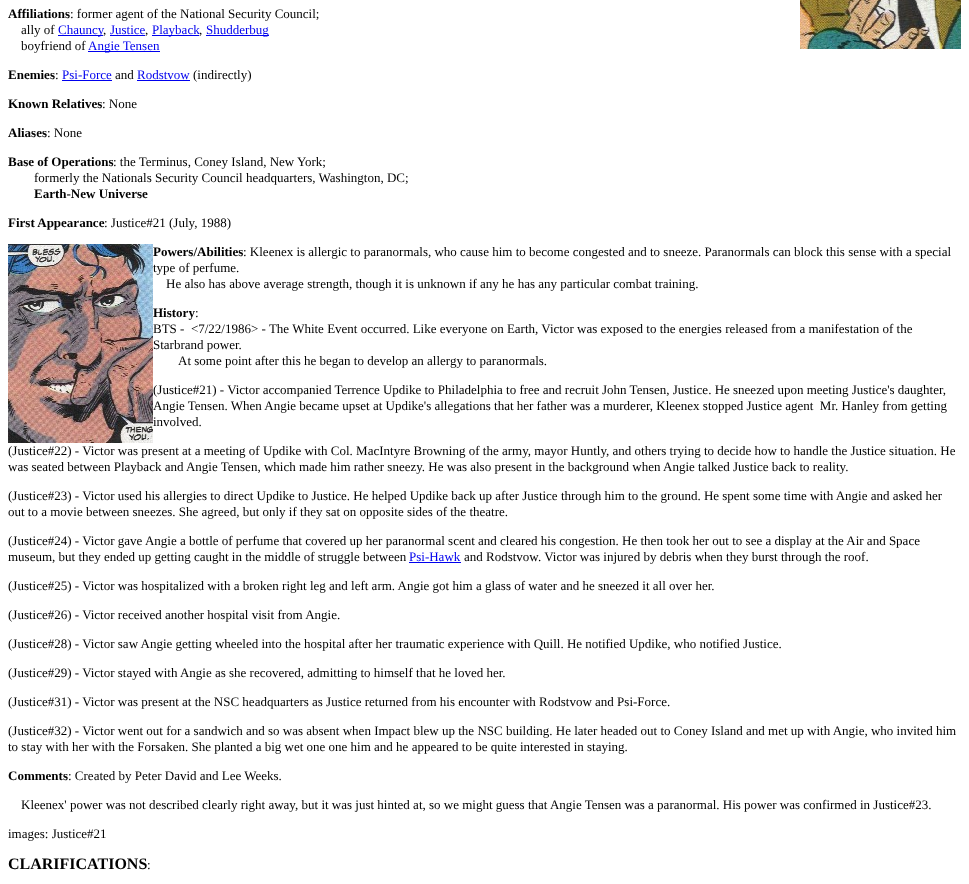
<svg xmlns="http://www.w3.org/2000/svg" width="969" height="884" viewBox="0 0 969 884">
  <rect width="100%" height="100%" fill="#fff"/>
  <image x="800" y="0" width="161" height="49" href="img/1.png"/>
  <path d="M58 35h45v1H58z" fill="#00e"/>
  <path d="M110 35h35v1H110z" fill="#00e"/>
  <path d="M152 35h47v1H152z" fill="#00e"/>
  <path d="M206 35h63v1H206z" fill="#00e"/>
  <path d="M88 51h72v1H88z" fill="#00e"/>
  <path d="M62 80h50v1H62z" fill="#00e"/>
  <path d="M137 80h53v1H137z" fill="#00e"/>
  <image x="8" y="244" width="145" height="199" href="img/2.png"/>
  <path d="M409 562h52v1H409z" fill="#00e"/>
  <text x="8" y="18" font-family="Liberation Serif" font-size="13" font-weight="bold" fill="#000">Affiliations</text>
  <g font-family="Liberation Serif" font-size="13" fill="#000">
    <text x="70" y="18">: former agent of the National Security Council;</text>
    <text x="21" y="34">ally of</text>
  </g>
  <text x="58" y="34" font-family="Liberation Serif" font-size="13" fill="#00e">Chauncy</text>
  <text x="103" y="34" font-family="Liberation Serif" font-size="13" fill="#000">,</text>
  <text x="110" y="34" font-family="Liberation Serif" font-size="13" fill="#00e">Justice</text>
  <text x="145" y="34" font-family="Liberation Serif" font-size="13" fill="#000">,</text>
  <text x="152" y="34" font-family="Liberation Serif" font-size="13" fill="#00e">Playback</text>
  <text x="199" y="34" font-family="Liberation Serif" font-size="13" fill="#000">,</text>
  <text x="206" y="34" font-family="Liberation Serif" font-size="13" fill="#00e">Shudderbug</text>
  <text x="21" y="50" font-family="Liberation Serif" font-size="13" fill="#000">boyfriend of</text>
  <text x="88" y="50" font-family="Liberation Serif" font-size="13" fill="#00e">Angie Tensen</text>
  <text x="8" y="79" font-family="Liberation Serif" font-size="13" font-weight="bold" fill="#000">Enemies</text>
  <text x="55" y="79" font-family="Liberation Serif" font-size="13" fill="#000">:</text>
  <text x="62" y="79" font-family="Liberation Serif" font-size="13" fill="#00e">Psi-Force</text>
  <text x="115" y="79" font-family="Liberation Serif" font-size="13" fill="#000">and</text>
  <text x="137" y="79" font-family="Liberation Serif" font-size="13" fill="#00e">Rodstvow</text>
  <text x="193" y="79" font-family="Liberation Serif" font-size="13" fill="#000">(indirectly)</text>
  <text x="8" y="108" font-family="Liberation Serif" font-size="13" font-weight="bold" fill="#000">Known Relatives</text>
  <text x="102" y="108" font-family="Liberation Serif" font-size="13" fill="#000">: None</text>
  <text x="8" y="137" font-family="Liberation Serif" font-size="13" font-weight="bold" fill="#000">Aliases</text>
  <text x="47" y="137" font-family="Liberation Serif" font-size="13" fill="#000">: None</text>
  <text x="8" y="166" font-family="Liberation Serif" font-size="13" font-weight="bold" fill="#000">Base of Operations</text>
  <g font-family="Liberation Serif" font-size="13" fill="#000">
    <text x="113" y="166">: the Terminus, Coney Island, New York;</text>
    <text x="34" y="182">formerly the Nationals Security Council headquarters, Washington, DC;</text>
  </g>
  <g font-family="Liberation Serif" font-size="13" font-weight="bold" fill="#000">
    <text x="34" y="198">Earth-New Universe</text>
    <text x="8" y="227">First Appearance</text>
  </g>
  <text x="104" y="227" font-family="Liberation Serif" font-size="13" fill="#000">: Justice#21 (July, 1988)</text>
  <text x="153" y="256" font-family="Liberation Serif" font-size="13" font-weight="bold" fill="#000">Powers/Abilities</text>
  <g font-family="Liberation Serif" font-size="13" fill="#000">
    <text x="243" y="256">: Kleenex is allergic to paranormals, who cause him to become congested and to sneeze. Paranormals can block this sense with a special</text>
    <text x="153" y="272">type of perfume.</text>
    <text x="166" y="288">He also has above average strength, though it is unknown if any he has any particular combat training.</text>
  </g>
  <text x="153" y="317" font-family="Liberation Serif" font-size="13" font-weight="bold" fill="#000">History</text>
  <g font-family="Liberation Serif" font-size="13" fill="#000">
    <text x="195" y="317">:</text>
    <text x="153" y="333" xml:space="preserve">BTS -  &lt;7/22/1986&gt; - The White Event occurred. Like everyone on Earth, Victor was exposed to the energies released from a manifestation of the</text>
    <text x="153" y="349">Starbrand power.</text>
    <text x="178" y="365">At some point after this he began to develop an allergy to paranormals.</text>
    <text x="153" y="394">(Justice#21) - Victor accompanied Terrence Updike to Philadelphia to free and recruit John Tensen, Justice. He sneezed upon meeting Justice's daughter,</text>
    <text x="153" y="410" xml:space="preserve">Angie Tensen. When Angie became upset at Updike's allegations that her father was a murderer, Kleenex stopped Justice agent  Mr. Hanley from getting</text>
    <text x="153" y="426">involved.</text>
    <text x="8" y="455">(Justice#22) - Victor was present at a meeting of Updike with Col. MacIntyre Browning of the army, mayor Huntly, and others trying to decide how to handle the Justice situation. He</text>
    <text x="8" y="471">was seated between Playback and Angie Tensen, which made him rather sneezy. He was also present in the background when Angie talked Justice back to reality.</text>
    <text x="8" y="500">(Justice#23) - Victor used his allergies to direct Updike to Justice. He helped Updike back up after Justice through him to the ground. He spent some time with Angie and asked her</text>
    <text x="8" y="516">out to a movie between sneezes. She agreed, but only if they sat on opposite sides of the theatre.</text>
    <text x="8" y="545">(Justice#24) - Victor gave Angie a bottle of perfume that covered up her paranormal scent and cleared his congestion. He then took her out to see a display at the Air and Space</text>
    <text x="8" y="561">museum, but they ended up getting caught in the middle of struggle between</text>
  </g>
  <text x="409" y="561" font-family="Liberation Serif" font-size="13" fill="#00e">Psi-Hawk</text>
  <g font-family="Liberation Serif" font-size="13" fill="#000">
    <text x="464" y="561">and Rodstvow. Victor was injured by debris when they burst through the roof.</text>
    <text x="8" y="590">(Justice#25) - Victor was hospitalized with a broken right leg and left arm. Angie got him a glass of water and he sneezed it all over her.</text>
    <text x="8" y="619">(Justice#26) - Victor received another hospital visit from Angie.</text>
    <text x="8" y="648">(Justice#28) - Victor saw Angie getting wheeled into the hospital after her traumatic experience with Quill. He notified Updike, who notified Justice.</text>
    <text x="8" y="677">(Justice#29) - Victor stayed with Angie as she recovered, admitting to himself that he loved her.</text>
    <text x="8" y="706">(Justice#31) - Victor was present at the NSC headquarters as Justice returned from his encounter with Rodstvow and Psi-Force.</text>
    <text x="8" y="735">(Justice#32) - Victor went out for a sandwich and so was absent when Impact blew up the NSC building. He later headed out to Coney Island and met up with Angie, who invited him</text>
    <text x="8" y="751">to stay with her with the Forsaken. She planted a big wet one one him and he appeared to be quite interested in staying.</text>
  </g>
  <text x="8" y="780" font-family="Liberation Serif" font-size="13" font-weight="bold" fill="#000">Comments</text>
  <g font-family="Liberation Serif" font-size="13" fill="#000">
    <text x="68" y="780">: Created by Peter David and Lee Weeks.</text>
    <text x="21" y="809">Kleenex' power was not described clearly right away, but it was just hinted at, so we might guess that Angie Tensen was a paranormal. His power was confirmed in Justice#23.</text>
    <text x="8" y="838">images: Justice#21</text>
  </g>
  <text x="8" y="869" font-family="Liberation Serif" font-size="16" font-weight="bold" fill="#000">CLARIFICATIONS</text>
  <text x="147" y="869" font-family="Liberation Serif" font-size="13" fill="#000">:</text>
</svg>
